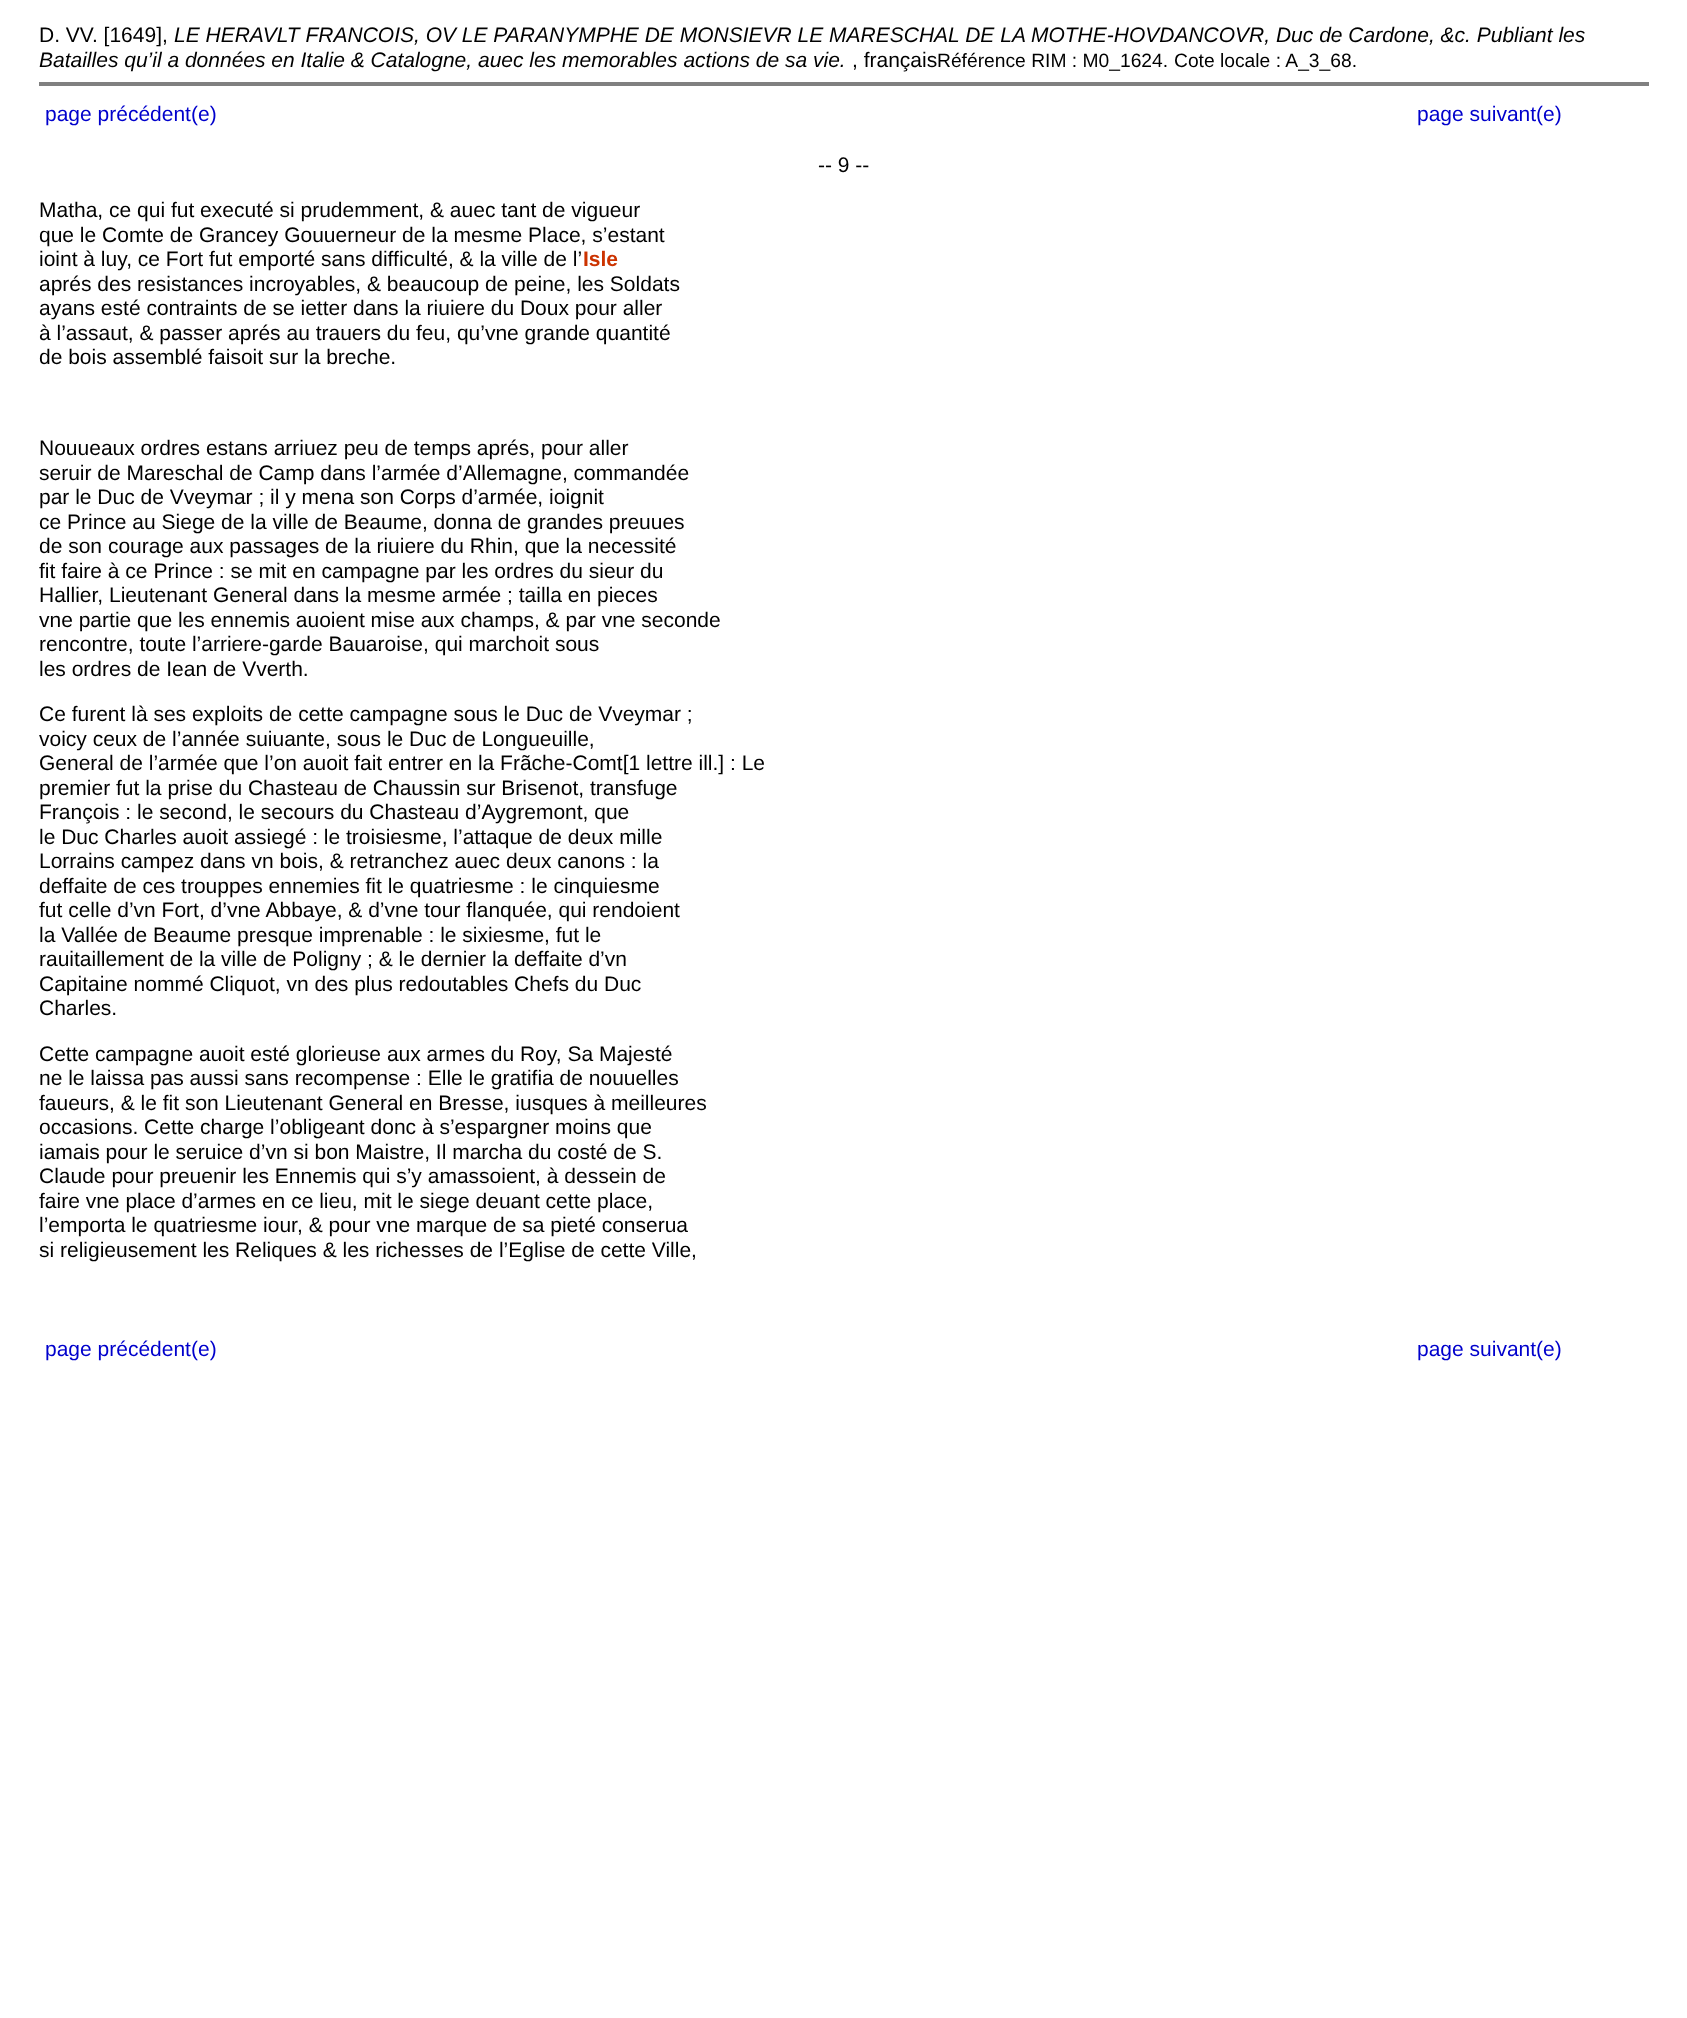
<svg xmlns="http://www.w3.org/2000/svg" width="1687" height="2018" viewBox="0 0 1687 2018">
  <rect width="100%" height="100%" fill="#fff"/>
  <path d="M39 82h1610v4H39z" fill="#808080"/>
  <text x="39" y="42" font-family="Liberation Sans" font-size="21" fill="#000">D. VV. [1649],</text>
  <g font-family="Liberation Sans" font-size="21" font-style="italic" fill="#000">
    <text x="174" y="42">LE HERAVLT FRANCOIS, OV LE PARANYMPHE DE MONSIEVR LE MARESCHAL DE LA MOTHE-HOVDANCOVR, Duc de Cardone, &amp;c. Publiant les</text>
    <text x="39" y="67">Batailles qu’il a données en Italie &amp; Catalogne, auec les memorables actions de sa vie.</text>
  </g>
  <text x="852" y="67" font-family="Liberation Sans" font-size="21" fill="#000">, français</text>
  <g font-family="Liberation Sans" font-size="19.25" fill="#000">
    <text x="937" y="67">Référence RIM : M0_1624.</text>
    <text x="1174" y="67">Cote locale : A_3_68.</text>
  </g>
  <g font-family="Liberation Sans" font-size="21" fill="#00c">
    <text x="45" y="121">page précédent(e)</text>
    <text x="1417" y="121">page suivant(e)</text>
  </g>
  <g font-family="Liberation Sans" font-size="21" fill="#000">
    <text x="818" y="172">-- 9 --</text>
    <text x="39" y="217">Matha, ce qui fut executé si prudemment, &amp; auec tant de vigueur</text>
    <text x="39" y="242">que le Comte de Grancey Gouuerneur de la mesme Place, s’estant</text>
    <text x="39" y="266">ioint à luy, ce Fort fut emporté sans difficulté, &amp; la ville de l’</text>
  </g>
  <text x="583" y="266" font-family="Liberation Sans" font-size="21" font-weight="bold" fill="#c30">Isle</text>
  <g font-family="Liberation Sans" font-size="21" fill="#000">
    <text x="39" y="291">aprés des resistances incroyables, &amp; beaucoup de peine, les Soldats</text>
    <text x="39" y="315">ayans esté contraints de se ietter dans la riuiere du Doux pour aller</text>
    <text x="39" y="340">à l’assaut, &amp; passer aprés au trauers du feu, qu’vne grande quantité</text>
    <text x="39" y="364">de bois assemblé faisoit sur la breche.</text>
    <text x="39" y="455">Nouueaux ordres estans arriuez peu de temps aprés, pour aller</text>
    <text x="39" y="480">seruir de Mareschal de Camp dans l’armée d’Allemagne, commandée</text>
    <text x="39" y="504">par le Duc de Vveymar ; il y mena son Corps d’armée, ioignit</text>
    <text x="39" y="529">ce Prince au Siege de la ville de Beaume, donna de grandes preuues</text>
    <text x="39" y="553">de son courage aux passages de la riuiere du Rhin, que la necessité</text>
    <text x="39" y="578">fit faire à ce Prince : se mit en campagne par les ordres du sieur du</text>
    <text x="39" y="602">Hallier, Lieutenant General dans la mesme armée ; tailla en pieces</text>
    <text x="39" y="627">vne partie que les ennemis auoient mise aux champs, &amp; par vne seconde</text>
    <text x="39" y="651">rencontre, toute l’arriere-garde Bauaroise, qui marchoit sous</text>
    <text x="39" y="676">les ordres de Iean de Vverth.</text>
    <text x="39" y="721">Ce furent là ses exploits de cette campagne sous le Duc de Vveymar ;</text>
    <text x="39" y="746">voicy ceux de l’année suiuante, sous le Duc de Longueuille,</text>
    <text x="39" y="770">General de l’armée que l’on auoit fait entrer en la Frãche-Comt[1 lettre ill.] : Le</text>
    <text x="39" y="795">premier fut la prise du Chasteau de Chaussin sur Brisenot, transfuge</text>
    <text x="39" y="819">François : le second, le secours du Chasteau d’Aygremont, que</text>
    <text x="39" y="844">le Duc Charles auoit assiegé : le troisiesme, l’attaque de deux mille</text>
    <text x="39" y="868">Lorrains campez dans vn bois, &amp; retranchez auec deux canons : la</text>
    <text x="39" y="893">deffaite de ces trouppes ennemies fit le quatriesme : le cinquiesme</text>
    <text x="39" y="917">fut celle d’vn Fort, d’vne Abbaye, &amp; d’vne tour flanquée, qui rendoient</text>
    <text x="39" y="942">la Vallée de Beaume presque imprenable : le sixiesme, fut le</text>
    <text x="39" y="966">rauitaillement de la ville de Poligny ; &amp; le dernier la deffaite d’vn</text>
    <text x="39" y="991">Capitaine nommé Cliquot, vn des plus redoutables Chefs du Duc</text>
    <text x="39" y="1015">Charles.</text>
    <text x="39" y="1061">Cette campagne auoit esté glorieuse aux armes du Roy, Sa Majesté</text>
    <text x="39" y="1085">ne le laissa pas aussi sans recompense : Elle le gratifia de nouuelles</text>
    <text x="39" y="1110">faueurs, &amp; le fit son Lieutenant General en Bresse, iusques à meilleures</text>
    <text x="39" y="1134">occasions. Cette charge l’obligeant donc à s’espargner moins que</text>
    <text x="39" y="1159">iamais pour le seruice d’vn si bon Maistre, Il marcha du costé de S.</text>
    <text x="39" y="1183">Claude pour preuenir les Ennemis qui s’y amassoient, à dessein de</text>
    <text x="39" y="1208">faire vne place d’armes en ce lieu, mit le siege deuant cette place,</text>
    <text x="39" y="1232">l’emporta le quatriesme iour, &amp; pour vne marque de sa pieté conserua</text>
    <text x="39" y="1257">si religieusement les Reliques &amp; les richesses de l’Eglise de cette Ville,</text>
  </g>
  <g font-family="Liberation Sans" font-size="21" fill="#00c">
    <text x="45" y="1356">page précédent(e)</text>
    <text x="1417" y="1356">page suivant(e)</text>
  </g>
</svg>
